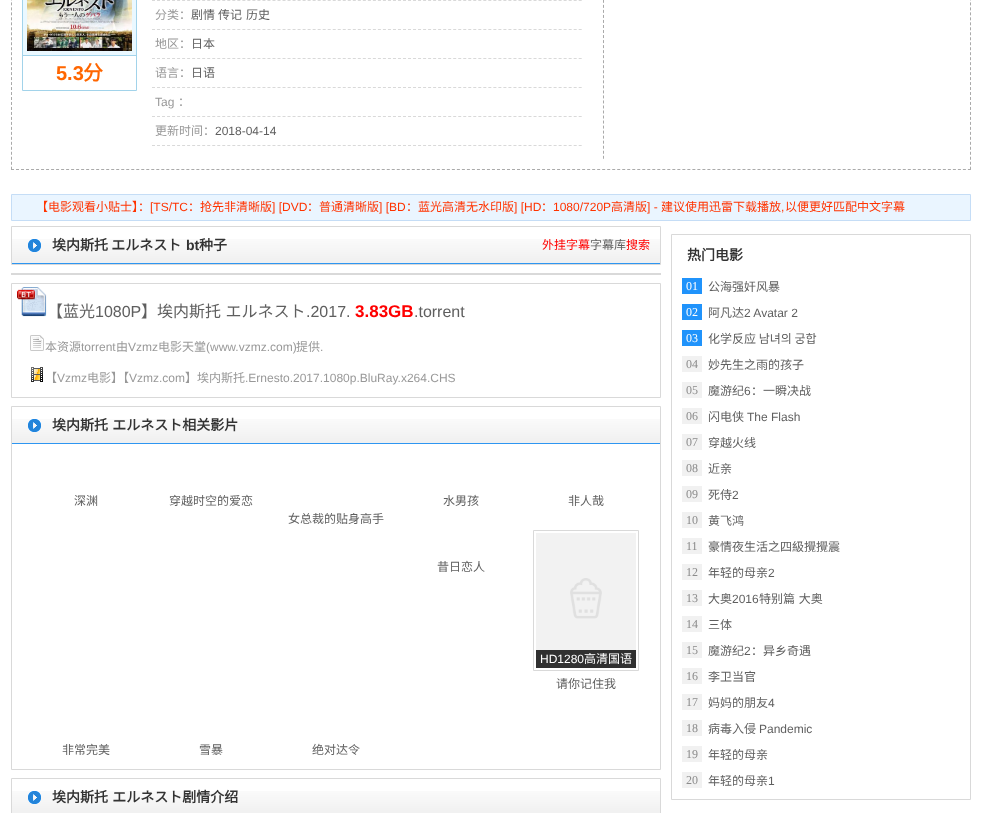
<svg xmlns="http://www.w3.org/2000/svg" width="982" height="813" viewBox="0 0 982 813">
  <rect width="100%" height="100%" fill="#fff"/>
  <path d="M970.5-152V170" fill="none" stroke="#aaa" stroke-dasharray="3 1.98"/>
  <path d="M11 169.5H971" fill="none" stroke="#aaa" stroke-dasharray="3 2.01"/>
  <path d="M11.5-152V170" fill="none" stroke="#aaa" stroke-dasharray="3 1.98"/>
  <path d="M22.5 -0.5h114v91H22.5z" fill="none" stroke="#a2d3ea"/>
  <path d="M23 0h113v55H23z" fill="#eaf8ff"/>
  <image x="27" y="0" width="105" height="51" href="img/1.png"/>
  <path d="M23 55h113v1H23z" fill="#a2d3ea"/>
  <path d="M152 .5H582" fill="none" stroke="#d9d9d9" stroke-dasharray="3 2.02"/>
  <path d="M152 29.5H582" fill="none" stroke="#d9d9d9" stroke-dasharray="3 2.02"/>
  <path d="M152 58.5H582" fill="none" stroke="#d9d9d9" stroke-dasharray="3 2.02"/>
  <path d="M152 87.5H582" fill="none" stroke="#d9d9d9" stroke-dasharray="3 2.02"/>
  <path d="M152 116.5H582" fill="none" stroke="#d9d9d9" stroke-dasharray="3 2.02"/>
  <path d="M152 145.5H582" fill="none" stroke="#d9d9d9" stroke-dasharray="3 2.02"/>
  <path d="M603.5-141V159" fill="none" stroke="#aaa" stroke-dasharray="3 2.03"/>
  <path d="M11.5 194.5h959v26H11.5z" fill="#eaf5ff" stroke="#c5ddf6"/>
  <path d="M11.5 226.5h649v38H11.5z" fill="none" stroke="#d9d9d9"/>
  <image x="12" y="239" width="648" height="25" href="img/2.png"/>
  <image x="28" y="239" width="13" height="13" href="img/3.png"/>
  <path d="M11 273h650v2H11z" fill="#d9d9d9"/>
  <path d="M11.5 283.5h649v114H11.5z" fill="none" stroke="#d9d9d9"/>
  <image x="17" y="287" width="30" height="30" href="img/4.png"/>
  <image x="30" y="335" width="14" height="16" href="img/5.png"/>
  <image x="31" y="367" width="12" height="15" href="img/6.png"/>
  <path d="M11.5 406.5h649v363H11.5z" fill="none" stroke="#d9d9d9"/>
  <image x="12" y="419" width="648" height="25" href="img/2.png"/>
  <image x="28" y="419" width="13" height="13" href="img/3.png"/>
  <path d="M533.5 530.5h105v140H533.5z" fill="none" stroke="#d9d9d9"/>
  <image x="536" y="533" width="100" height="117" href="img/7.png"/>
  <path d="M536 650h100v18H536z" fill="#303030"/>
  <path d="M11.5 778.5h649v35H11.5z" fill="none" stroke="#d9d9d9"/>
  <image x="12" y="791" width="648" height="22" href="img/8.png"/>
  <image x="28" y="791" width="13" height="13" href="img/3.png"/>
  <path d="M671.5 234.5h299v565H671.5z" fill="none" stroke="#d9d9d9"/>
  <path d="M682 278h20v16H682z" fill="#2093fb"/>
  <path d="M682 304h20v16H682z" fill="#2093fb"/>
  <path d="M682 330h20v16H682z" fill="#2093fb"/>
  <path d="M682 356h20v16H682z" fill="#f1f1f1"/>
  <path d="M682 382h20v16H682z" fill="#f1f1f1"/>
  <path d="M682 408h20v16H682z" fill="#f1f1f1"/>
  <path d="M682 434h20v16H682z" fill="#f1f1f1"/>
  <path d="M682 460h20v16H682z" fill="#f1f1f1"/>
  <path d="M682 486h20v16H682z" fill="#f1f1f1"/>
  <path d="M682 512h20v16H682z" fill="#f1f1f1"/>
  <path d="M682 538h20v16H682z" fill="#f1f1f1"/>
  <path d="M682 564h20v16H682z" fill="#f1f1f1"/>
  <path d="M682 590h20v16H682z" fill="#f1f1f1"/>
  <path d="M682 616h20v16H682z" fill="#f1f1f1"/>
  <path d="M682 642h20v16H682z" fill="#f1f1f1"/>
  <path d="M682 668h20v16H682z" fill="#f1f1f1"/>
  <path d="M682 694h20v16H682z" fill="#f1f1f1"/>
  <path d="M682 720h20v16H682z" fill="#f1f1f1"/>
  <path d="M682 746h20v16H682z" fill="#f1f1f1"/>
  <path d="M682 772h20v16H682z" fill="#f1f1f1"/>
  <text x="56" y="80" font-family="Liberation Sans" font-size="20" font-weight="bold" fill="#f60">5.3</text>
  <text x="83" y="80" font-family="Noto Sans CJK SC" font-size="20" font-weight="bold" fill="#f60">分</text>
  <text x="155" y="19" font-family="Noto Sans CJK SC" font-size="12" fill="#999">分类：</text>
  <g font-family="Noto Sans CJK SC" font-size="12" fill="#5f5f5f">
    <text x="191" y="19">剧情</text>
    <text x="218" y="19">传记</text>
    <text x="246" y="19">历史</text>
  </g>
  <text x="155" y="48" font-family="Noto Sans CJK SC" font-size="12" fill="#999">地区：</text>
  <text x="191" y="48" font-family="Noto Sans CJK SC" font-size="12" fill="#5f5f5f">日本</text>
  <text x="155" y="77" font-family="Noto Sans CJK SC" font-size="12" fill="#999">语言：</text>
  <text x="191" y="77" font-family="Noto Sans CJK SC" font-size="12" fill="#5f5f5f">日语</text>
  <text x="155" y="106" font-family="Liberation Sans" font-size="12" fill="#999">Tag</text>
  <g font-family="Noto Sans CJK SC" font-size="12" fill="#999">
    <text x="178" y="106">：</text>
    <text x="155" y="135">更新时间：</text>
  </g>
  <text x="215" y="135" font-family="Liberation Sans" font-size="12" fill="#5f5f5f">2018-04-14</text>
  <text x="36" y="211" font-family="Noto Sans CJK SC" font-size="12" fill="#f30">【电影观看小贴士】：</text>
  <text x="150" y="211" font-family="Liberation Sans" font-size="12" fill="#f30">[TS/TC</text>
  <text x="188" y="211" font-family="Noto Sans CJK SC" font-size="12" fill="#f30">：抢先非清晰版</text>
  <text x="272" y="211" font-family="Liberation Sans" font-size="12" fill="#f30">] [DVD</text>
  <text x="307" y="211" font-family="Noto Sans CJK SC" font-size="12" fill="#f30">：普通清晰版</text>
  <text x="379" y="211" font-family="Liberation Sans" font-size="12" fill="#f30">] [BD</text>
  <text x="406" y="211" font-family="Noto Sans CJK SC" font-size="12" fill="#f30">：蓝光高清无水印版</text>
  <text x="514" y="211" font-family="Liberation Sans" font-size="12" fill="#f30">] [HD</text>
  <text x="541" y="211" font-family="Noto Sans CJK SC" font-size="12" fill="#f30">：</text>
  <text x="553" y="211" font-family="Liberation Sans" font-size="12" fill="#f30">1080/720P</text>
  <text x="611" y="211" font-family="Noto Sans CJK SC" font-size="12" fill="#f30">高清版</text>
  <text x="647" y="211" font-family="Liberation Sans" font-size="12" fill="#f30">] -</text>
  <text x="661" y="211" font-family="Noto Sans CJK SC" font-size="12" fill="#f30">建议使用迅雷下载播放</text>
  <text x="781" y="211" font-family="Liberation Sans" font-size="12" fill="#f30">,</text>
  <text x="785" y="211" font-family="Noto Sans CJK SC" font-size="12" fill="#f30">以便更好匹配中文字幕</text>
  <text x="52" y="250" font-family="Noto Sans CJK SC" font-size="14" font-weight="bold" fill="#333">埃内斯托 エルネスト</text>
  <text x="186" y="250" font-family="Liberation Sans" font-size="14" font-weight="bold" fill="#333">bt</text>
  <text x="199" y="250" font-family="Noto Sans CJK SC" font-size="14" font-weight="bold" fill="#333">种子</text>
  <text x="542" y="249" font-family="Noto Sans CJK SC" font-size="12" fill="#f00">外挂字幕</text>
  <text x="590" y="249" font-family="Noto Sans CJK SC" font-size="12" fill="#5f5f5f">字幕库</text>
  <text x="626" y="249" font-family="Noto Sans CJK SC" font-size="12" fill="#f00">搜索</text>
  <text x="47" y="317" font-family="Noto Sans CJK SC" font-size="16" fill="#5f5f5f">【蓝光</text>
  <text x="95" y="317" font-family="Liberation Sans" font-size="16" fill="#5f5f5f">1080P</text>
  <text x="141" y="317" word-spacing="1" font-family="Noto Sans CJK SC" font-size="16" fill="#5f5f5f">】埃内斯托 エルネスト</text>
  <text x="306" y="317" font-family="Liberation Sans" font-size="16" fill="#5f5f5f">.2017.</text>
  <text x="355" y="317" font-family="Liberation Sans" font-size="17" font-weight="bold" fill="#f00">3.83GB</text>
  <text x="414" y="317" font-family="Liberation Sans" font-size="16" fill="#5f5f5f">.torrent</text>
  <text x="45" y="351" font-family="Noto Sans CJK SC" font-size="12" fill="#999">本资源</text>
  <text x="81" y="351" font-family="Liberation Sans" font-size="12" fill="#999">torrent</text>
  <text x="116" y="351" font-family="Noto Sans CJK SC" font-size="12" fill="#999">由</text>
  <text x="128" y="351" font-family="Liberation Sans" font-size="12" fill="#999">Vzmz</text>
  <text x="158" y="351" font-family="Noto Sans CJK SC" font-size="12" fill="#999">电影天堂</text>
  <text x="206" y="351" font-family="Liberation Sans" font-size="12" fill="#999">(www.vzmz.com)</text>
  <text x="296" y="351" font-family="Noto Sans CJK SC" font-size="12" fill="#999">提供</text>
  <text x="320" y="351" font-family="Liberation Sans" font-size="12" fill="#999">.</text>
  <text x="45" y="382" font-family="Noto Sans CJK SC" font-size="12" fill="#999">【</text>
  <text x="57" y="382" font-family="Liberation Sans" font-size="12" fill="#999">Vzmz</text>
  <text x="87" y="382" font-family="Noto Sans CJK SC" font-size="12" fill="#999">电影】【</text>
  <text x="129" y="382" font-family="Liberation Sans" font-size="12" fill="#999">Vzmz.com</text>
  <text x="185" y="382" font-family="Noto Sans CJK SC" font-size="12" fill="#999">】埃内斯托</text>
  <text x="245" y="382" font-family="Liberation Sans" font-size="12" fill="#999">.Ernesto.2017.1080p.BluRay.x264.CHS</text>
  <text x="52" y="430" word-spacing="1" font-family="Noto Sans CJK SC" font-size="14" font-weight="bold" fill="#333">埃内斯托 エルネスト相关影片</text>
  <g font-family="Noto Sans CJK SC" font-size="12" fill="#5f5f5f">
    <text x="74" y="505">深渊</text>
    <text x="169" y="505">穿越时空的爱恋</text>
    <text x="443" y="505">水男孩</text>
    <text x="568" y="505">非人哉</text>
    <text x="288" y="523">女总裁的贴身高手</text>
    <text x="437" y="571">昔日恋人</text>
  </g>
  <text x="540" y="663" font-family="Liberation Sans" font-size="12" fill="#fff">HD1280</text>
  <text x="584" y="663" font-family="Noto Sans CJK SC" font-size="12" fill="#fff">高清国语</text>
  <g font-family="Noto Sans CJK SC" font-size="12" fill="#5f5f5f">
    <text x="556" y="688">请你记住我</text>
    <text x="62" y="754">非常完美</text>
    <text x="199" y="754">雪暴</text>
    <text x="312" y="754">绝对达令</text>
  </g>
  <g font-family="Noto Sans CJK SC" font-size="14" font-weight="bold" fill="#333">
    <text x="52" y="802" word-spacing="1">埃内斯托 エルネスト剧情介绍</text>
    <text x="687" y="260">热门电影</text>
  </g>
  <text x="686" y="290" font-family="Liberation Serif" font-size="12" fill="#fff">01</text>
  <text x="708" y="291" font-family="Noto Sans CJK SC" font-size="12" fill="#5f5f5f">公海强奸风暴</text>
  <text x="686" y="316" font-family="Liberation Serif" font-size="12" fill="#fff">02</text>
  <text x="708" y="317" font-family="Noto Sans CJK SC" font-size="12" fill="#5f5f5f">阿凡达</text>
  <text x="744" y="317" font-family="Liberation Sans" font-size="12" fill="#5f5f5f">2 Avatar 2</text>
  <text x="686" y="342" font-family="Liberation Serif" font-size="12" fill="#fff">03</text>
  <text x="708" y="343" font-family="Noto Sans CJK SC" font-size="12" fill="#5f5f5f">化学反应 남녀의 궁합</text>
  <text x="686" y="368" font-family="Liberation Serif" font-size="12" fill="#8b8b8b">04</text>
  <text x="708" y="369" font-family="Noto Sans CJK SC" font-size="12" fill="#5f5f5f">妙先生之雨的孩子</text>
  <text x="686" y="394" font-family="Liberation Serif" font-size="12" fill="#8b8b8b">05</text>
  <text x="708" y="395" font-family="Noto Sans CJK SC" font-size="12" fill="#5f5f5f">魔游纪</text>
  <text x="744" y="395" font-family="Liberation Sans" font-size="12" fill="#5f5f5f">6</text>
  <text x="751" y="395" font-family="Noto Sans CJK SC" font-size="12" fill="#5f5f5f">：一瞬决战</text>
  <text x="686" y="420" font-family="Liberation Serif" font-size="12" fill="#8b8b8b">06</text>
  <text x="708" y="421" font-family="Noto Sans CJK SC" font-size="12" fill="#5f5f5f">闪电侠</text>
  <text x="747" y="421" font-family="Liberation Sans" font-size="12" fill="#5f5f5f">The Flash</text>
  <text x="686" y="446" font-family="Liberation Serif" font-size="12" fill="#8b8b8b">07</text>
  <text x="708" y="447" font-family="Noto Sans CJK SC" font-size="12" fill="#5f5f5f">穿越火线</text>
  <text x="686" y="472" font-family="Liberation Serif" font-size="12" fill="#8b8b8b">08</text>
  <text x="708" y="473" font-family="Noto Sans CJK SC" font-size="12" fill="#5f5f5f">近亲</text>
  <text x="686" y="498" font-family="Liberation Serif" font-size="12" fill="#8b8b8b">09</text>
  <text x="708" y="499" font-family="Noto Sans CJK SC" font-size="12" fill="#5f5f5f">死侍</text>
  <text x="732" y="499" font-family="Liberation Sans" font-size="12" fill="#5f5f5f">2</text>
  <text x="686" y="524" font-family="Liberation Serif" font-size="12" fill="#8b8b8b">10</text>
  <text x="708" y="525" font-family="Noto Sans CJK SC" font-size="12" fill="#5f5f5f">黄飞鸿</text>
  <text x="686" y="550" font-family="Liberation Serif" font-size="12" fill="#8b8b8b">11</text>
  <text x="708" y="551" font-family="Noto Sans CJK SC" font-size="12" fill="#5f5f5f">豪情夜生活之四級攪攪震</text>
  <text x="686" y="576" font-family="Liberation Serif" font-size="12" fill="#8b8b8b">12</text>
  <text x="708" y="577" font-family="Noto Sans CJK SC" font-size="12" fill="#5f5f5f">年轻的母亲</text>
  <text x="768" y="577" font-family="Liberation Sans" font-size="12" fill="#5f5f5f">2</text>
  <text x="686" y="602" font-family="Liberation Serif" font-size="12" fill="#8b8b8b">13</text>
  <text x="708" y="603" font-family="Noto Sans CJK SC" font-size="12" fill="#5f5f5f">大奥</text>
  <text x="732" y="603" font-family="Liberation Sans" font-size="12" fill="#5f5f5f">2016</text>
  <text x="759" y="603" word-spacing="1" font-family="Noto Sans CJK SC" font-size="12" fill="#5f5f5f">特别篇 大奥</text>
  <text x="686" y="628" font-family="Liberation Serif" font-size="12" fill="#8b8b8b">14</text>
  <text x="708" y="629" font-family="Noto Sans CJK SC" font-size="12" fill="#5f5f5f">三体</text>
  <text x="686" y="654" font-family="Liberation Serif" font-size="12" fill="#8b8b8b">15</text>
  <text x="708" y="655" font-family="Noto Sans CJK SC" font-size="12" fill="#5f5f5f">魔游纪</text>
  <text x="744" y="655" font-family="Liberation Sans" font-size="12" fill="#5f5f5f">2</text>
  <text x="751" y="655" font-family="Noto Sans CJK SC" font-size="12" fill="#5f5f5f">：异乡奇遇</text>
  <text x="686" y="680" font-family="Liberation Serif" font-size="12" fill="#8b8b8b">16</text>
  <text x="708" y="681" font-family="Noto Sans CJK SC" font-size="12" fill="#5f5f5f">李卫当官</text>
  <text x="686" y="706" font-family="Liberation Serif" font-size="12" fill="#8b8b8b">17</text>
  <text x="708" y="707" font-family="Noto Sans CJK SC" font-size="12" fill="#5f5f5f">妈妈的朋友</text>
  <text x="768" y="707" font-family="Liberation Sans" font-size="12" fill="#5f5f5f">4</text>
  <text x="686" y="732" font-family="Liberation Serif" font-size="12" fill="#8b8b8b">18</text>
  <text x="708" y="733" font-family="Noto Sans CJK SC" font-size="12" fill="#5f5f5f">病毒入侵</text>
  <text x="759" y="733" font-family="Liberation Sans" font-size="12" fill="#5f5f5f">Pandemic</text>
  <text x="686" y="758" font-family="Liberation Serif" font-size="12" fill="#8b8b8b">19</text>
  <text x="708" y="759" font-family="Noto Sans CJK SC" font-size="12" fill="#5f5f5f">年轻的母亲</text>
  <text x="686" y="784" font-family="Liberation Serif" font-size="12" fill="#8b8b8b">20</text>
  <text x="708" y="785" font-family="Noto Sans CJK SC" font-size="12" fill="#5f5f5f">年轻的母亲</text>
  <text x="768" y="785" font-family="Liberation Sans" font-size="12" fill="#5f5f5f">1</text>
</svg>
